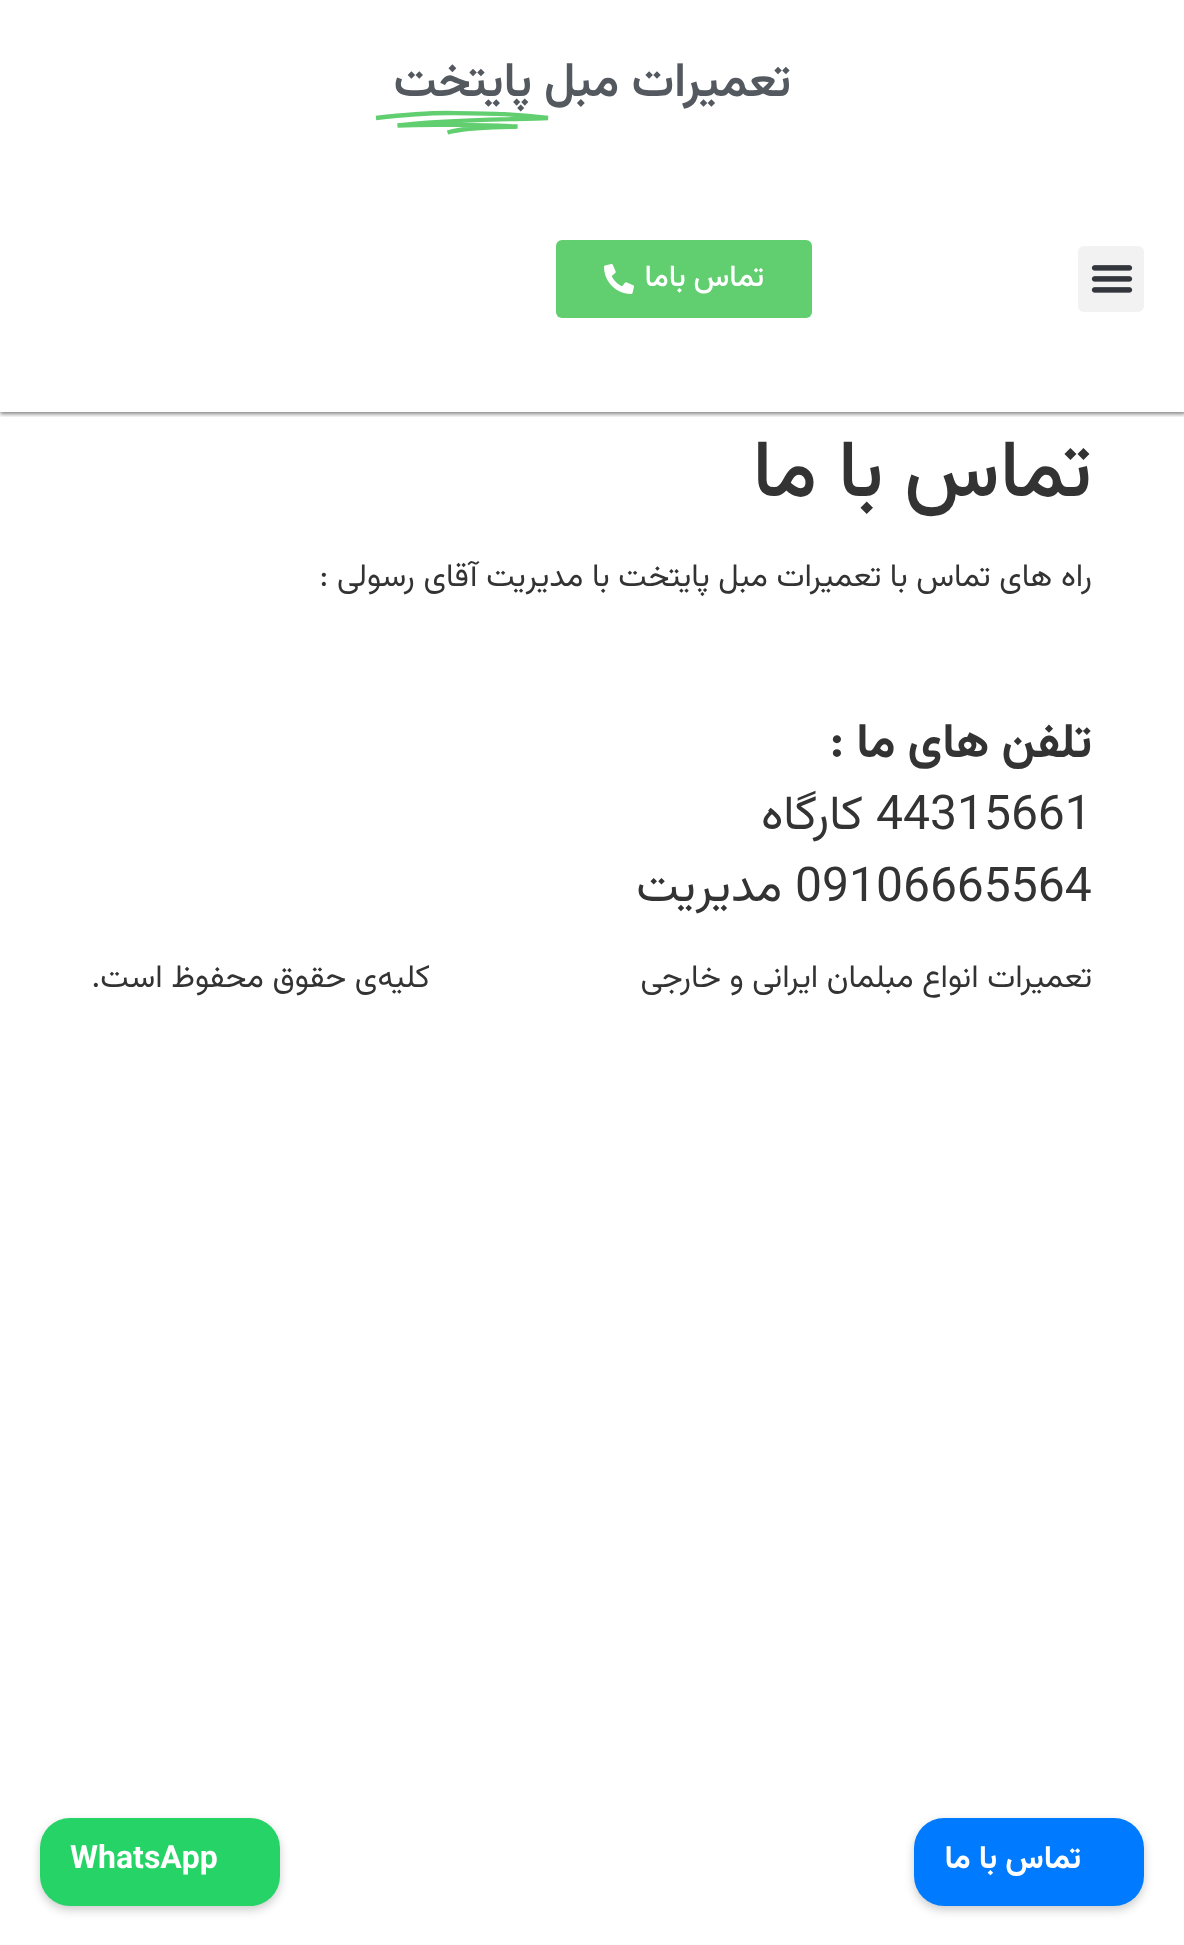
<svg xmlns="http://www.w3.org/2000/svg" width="1184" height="1945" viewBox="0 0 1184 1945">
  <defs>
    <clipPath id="clip1"><path d="M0 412h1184v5H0z"/></clipPath>
  </defs>
  <rect width="100%" height="100%" fill="#fff"/>
  <g clip-path="url(#clip1)">
    <path d="M0 0h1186v414H0z" fill="#00000080" filter="blur(2px)"/>
  </g>
  <path d="M376 118C393.5 116 430 113 447.5 113C491 113.5 515 113.5 548 118C508.5 119.5 437.5 120 397.5 125.5C427 124 488.5 125 517.5 126.5C497.5 127.5 468.5 126.5 447.5 132.5" fill="none" stroke="#61ce70" stroke-width="4.3"/>
  <rect x="1078" y="246" width="66" height="66" rx="6" fill="#f2f2f2"/>
  <image x="1091" y="265" width="42" height="28" href="img/1.png"/>
  <rect x="556" y="240" width="256" height="78" rx="6" fill="#61ce70"/>
  <image x="604" y="264" width="30" height="30" href="img/2.png"/>
  <rect x="914" y="1822" width="230" height="88" rx="30" fill="#00000033" filter="blur(5px)"/>
  <rect x="914" y="1818" width="230" height="88" rx="30" fill="#007bff"/>
  <rect x="40" y="1822" width="240" height="88" rx="30" fill="#00000033" filter="blur(5px)"/>
  <rect x="40" y="1818" width="240" height="88" rx="30" fill="#25d366"/>
  <g font-family="Vazirmatn" font-size="48" font-weight="600" direction="rtl" fill="#54595f">
    <text x="791" y="96">تعمیرات مبل</text>
    <text x="532" y="96">پایتخت</text>
  </g>
  <text x="764" y="286" font-family="Vazirmatn" font-size="30" font-weight="500" direction="rtl" fill="#fff">تماس باما</text>
  <text x="1092" y="496" font-family="Vazirmatn" font-size="80" font-weight="500" direction="rtl" fill="#333">تماس با ما</text>
  <text x="1092" y="586" font-family="Vazirmatn" font-size="32" direction="rtl" fill="#333">راه های تماس با تعمیرات مبل پایتخت با مدیریت آقای رسولی :</text>
  <text x="1092" y="757" font-family="Vazirmatn" font-size="48" font-weight="bold" direction="rtl" fill="#333">تلفن های ما :</text>
  <text x="876" y="829" font-family="Vazirmatn" font-size="48" fill="#333">44315661</text>
  <text x="863" y="829" font-family="Vazirmatn" font-size="48" direction="rtl" fill="#333">کارگاه</text>
  <text x="795" y="901" font-family="Vazirmatn" font-size="48" fill="#333">09106665564</text>
  <text x="782" y="901" font-family="Vazirmatn" font-size="48" direction="rtl" fill="#333">مدیریت</text>
  <g font-family="Vazirmatn" font-size="32" direction="rtl" fill="#333">
    <text x="1092" y="987">تعمیرات انواع مبلمان ایرانی و خارجی</text>
    <text x="430" y="987">کلیه‌ی حقوق محفوظ است.</text>
  </g>
  <text x="1081" y="1868" font-family="Vazirmatn" font-size="32" font-weight="bold" direction="rtl" fill="#fff">تماس با ما</text>
  <text x="70" y="1868" font-family="Vazirmatn" font-size="32" font-weight="bold" fill="#fff">WhatsApp</text>
</svg>
